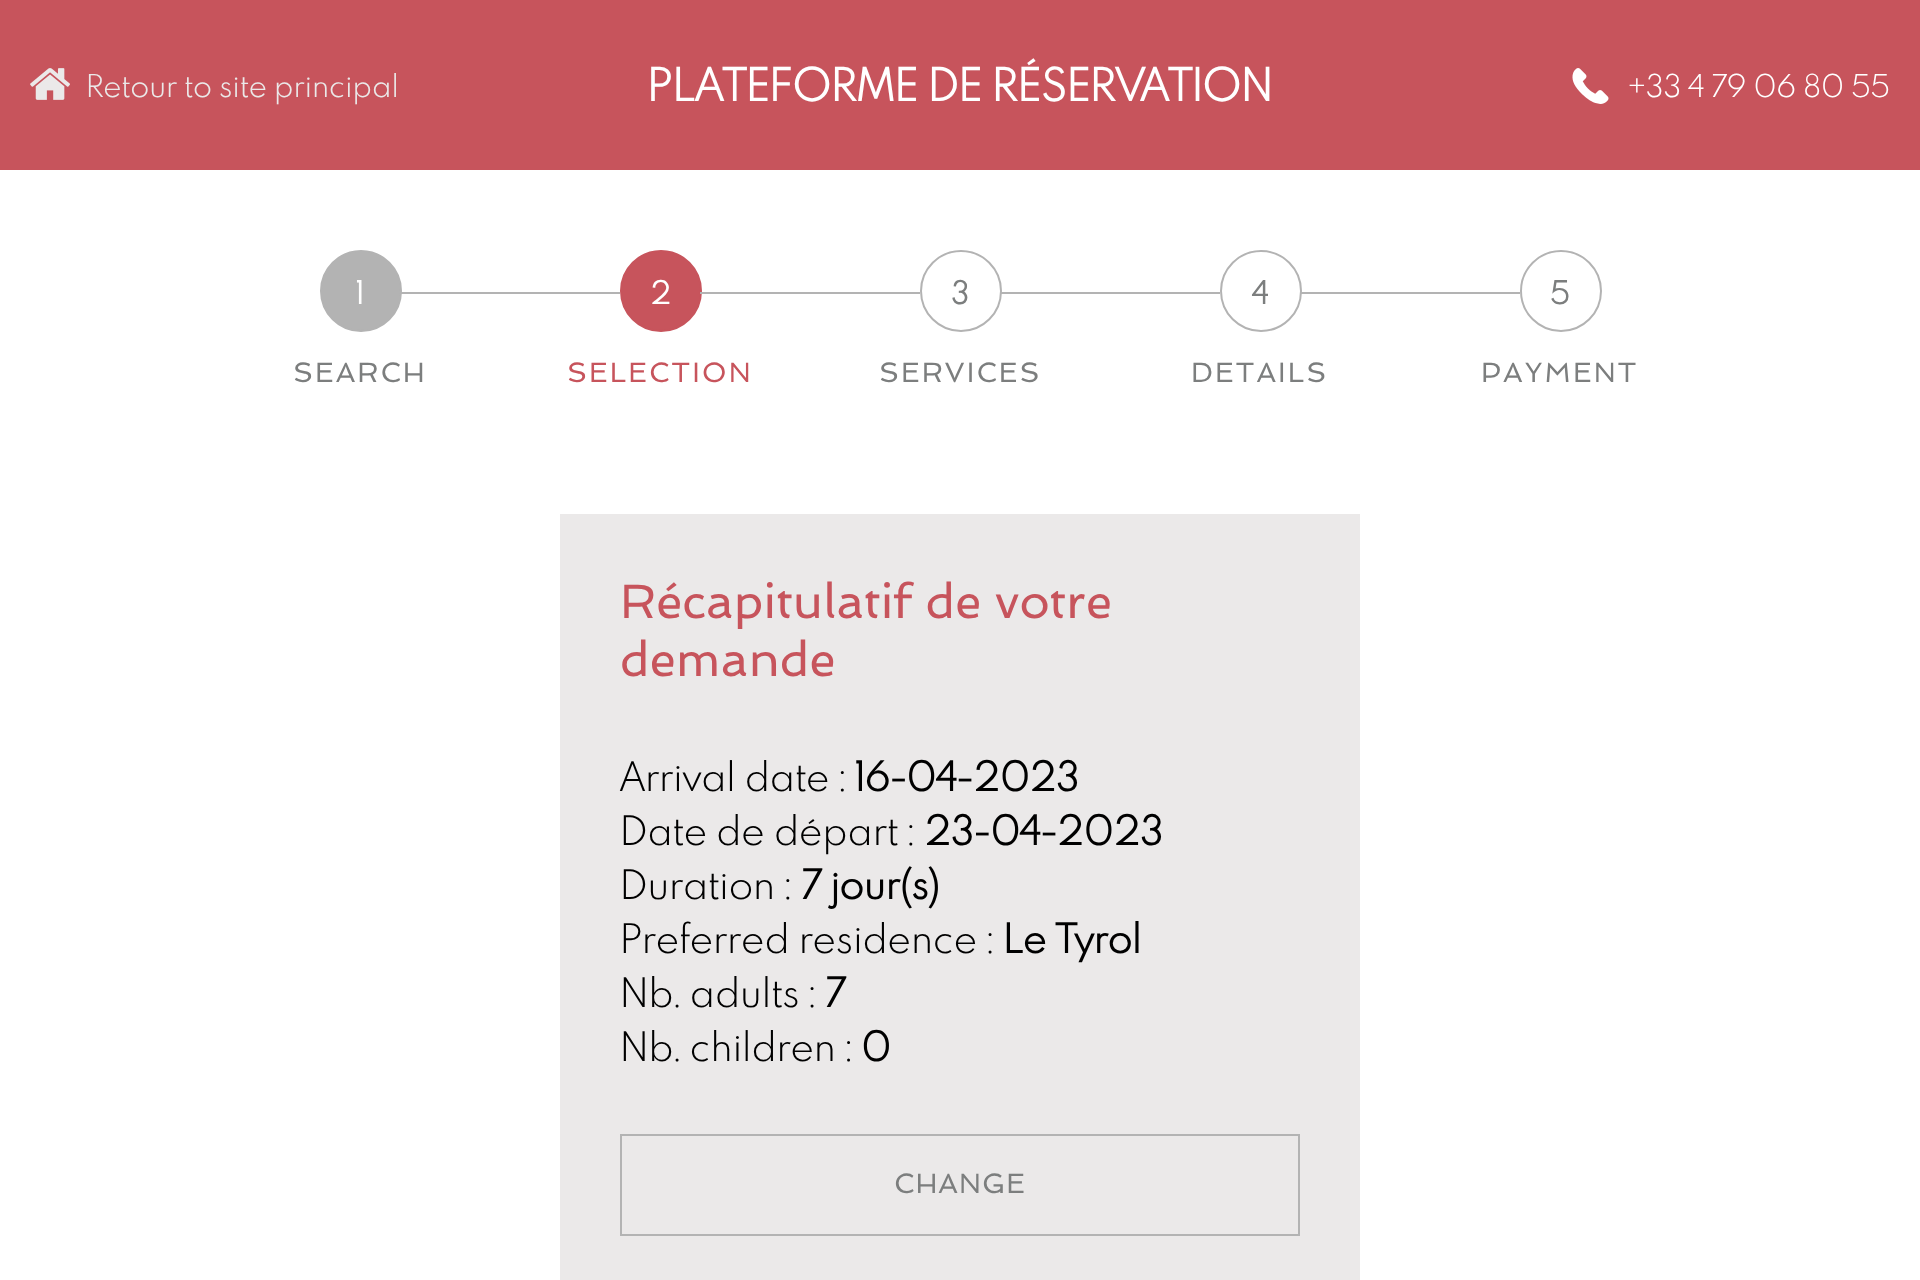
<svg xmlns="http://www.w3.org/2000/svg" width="1920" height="1280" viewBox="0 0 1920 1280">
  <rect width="100%" height="100%" fill="#fff"/>
  <path d="M0 0h1920v170H0z" fill="#c7545c"/>
  <image x="30" y="68" width="40" height="32" href="img/1.png"/>
  <image x="1572" y="68" width="37" height="36" href="img/2.png"/>
  <circle cx="361" cy="291" r="40" fill="#b3b3b3" stroke="#b3b3b3" stroke-width="2"/>
  <circle cx="661" cy="291" r="40" fill="#c7545c" stroke="#c7545c" stroke-width="2"/>
  <path d="M400 292h220v2H400z" fill="#b3b3b3"/>
  <circle cx="961" cy="291" r="40" fill="none" stroke="#b3b3b3" stroke-width="2"/>
  <path d="M700 292h220v2H700z" fill="#b3b3b3"/>
  <circle cx="1261" cy="291" r="40" fill="none" stroke="#b3b3b3" stroke-width="2"/>
  <path d="M1000 292h220v2H1000z" fill="#b3b3b3"/>
  <circle cx="1561" cy="291" r="40" fill="none" stroke="#b3b3b3" stroke-width="2"/>
  <path d="M1300 292h220v2H1300z" fill="#b3b3b3"/>
  <path d="M560 514h800v766H560z" fill="#ebe9e9"/>
  <path d="M621 1135h678v100H621z" fill="none" stroke="#b3b3b3" stroke-width="2"/>
  <text x="86" y="97" font-family="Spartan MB" font-size="28" font-weight="300" fill="#ebe9e9">Retour to site principal</text>
  <text x="647" y="101" font-family="Spartan MB" font-size="40" font-weight="bold" fill="#fff">PLATEFORME DE RÉSERVATION</text>
  <text x="1628" y="97" font-family="Spartan MB" font-size="28" font-weight="300" fill="#fff">+33 4 79 06 80 55</text>
  <text x="356" y="304" font-family="Spartan MB" font-size="28" font-weight="bold" fill="#fff">1</text>
  <text x="293" y="382" font-family="Spinnaker" font-size="28" letter-spacing="2" fill="#7c7e7e">SEARCH</text>
  <text x="650" y="304" font-family="Spartan MB" font-size="28" font-weight="bold" fill="#fff">2</text>
  <text x="567" y="382" font-family="Spinnaker" font-size="28" letter-spacing="2" fill="#c7545c">SELECTION</text>
  <text x="951" y="304" font-family="Spartan MB" font-size="28" font-weight="bold" fill="#7c7e7e">3</text>
  <text x="879" y="382" font-family="Spinnaker" font-size="28" letter-spacing="2" fill="#7c7e7e">SERVICES</text>
  <text x="1252" y="304" font-family="Spartan MB" font-size="28" font-weight="bold" fill="#7c7e7e">4</text>
  <text x="1191" y="382" font-family="Spinnaker" font-size="28" letter-spacing="2" fill="#7c7e7e">DETAILS</text>
  <text x="1550" y="304" font-family="Spartan MB" font-size="28" font-weight="bold" fill="#7c7e7e">5</text>
  <text x="1481" y="382" font-family="Spinnaker" font-size="28" letter-spacing="2" fill="#7c7e7e">PAYMENT</text>
  <g font-family="Spinnaker" font-size="48" fill="#c7545c">
    <text x="620" y="618">Récapitulatif de votre</text>
    <text x="620" y="676">demande</text>
  </g>
  <text x="620" y="791" font-family="Spartan MB" font-size="36" font-weight="300" fill="#000">Arrival date :</text>
  <text x="855" y="791" font-family="Spartan MB" font-size="36" font-weight="bold" fill="#000">16-04-2023</text>
  <text x="620" y="845" font-family="Spartan MB" font-size="36" font-weight="300" fill="#000">Date de départ :</text>
  <text x="924" y="845" font-family="Spartan MB" font-size="36" font-weight="bold" fill="#000">23-04-2023</text>
  <text x="620" y="899" font-family="Spartan MB" font-size="36" font-weight="300" fill="#000">Duration :</text>
  <text x="801" y="899" font-family="Spartan MB" font-size="36" font-weight="bold" fill="#000">7 jour(s)</text>
  <text x="620" y="953" font-family="Spartan MB" font-size="36" font-weight="300" fill="#000">Preferred residence :</text>
  <text x="1003" y="953" font-family="Spartan MB" font-size="36" font-weight="bold" fill="#000">Le Tyrol</text>
  <text x="620" y="1007" font-family="Spartan MB" font-size="36" font-weight="300" fill="#000">Nb. adults :</text>
  <text x="825" y="1007" font-family="Spartan MB" font-size="36" font-weight="bold" fill="#000">7</text>
  <text x="620" y="1061" font-family="Spartan MB" font-size="36" font-weight="300" fill="#000">Nb. children :</text>
  <text x="861" y="1061" font-family="Spartan MB" font-size="36" font-weight="bold" fill="#000">0</text>
  <text x="894" y="1193" font-family="Spinnaker" font-size="28" letter-spacing="1" fill="#7c7e7e">CHANGE</text>
</svg>
